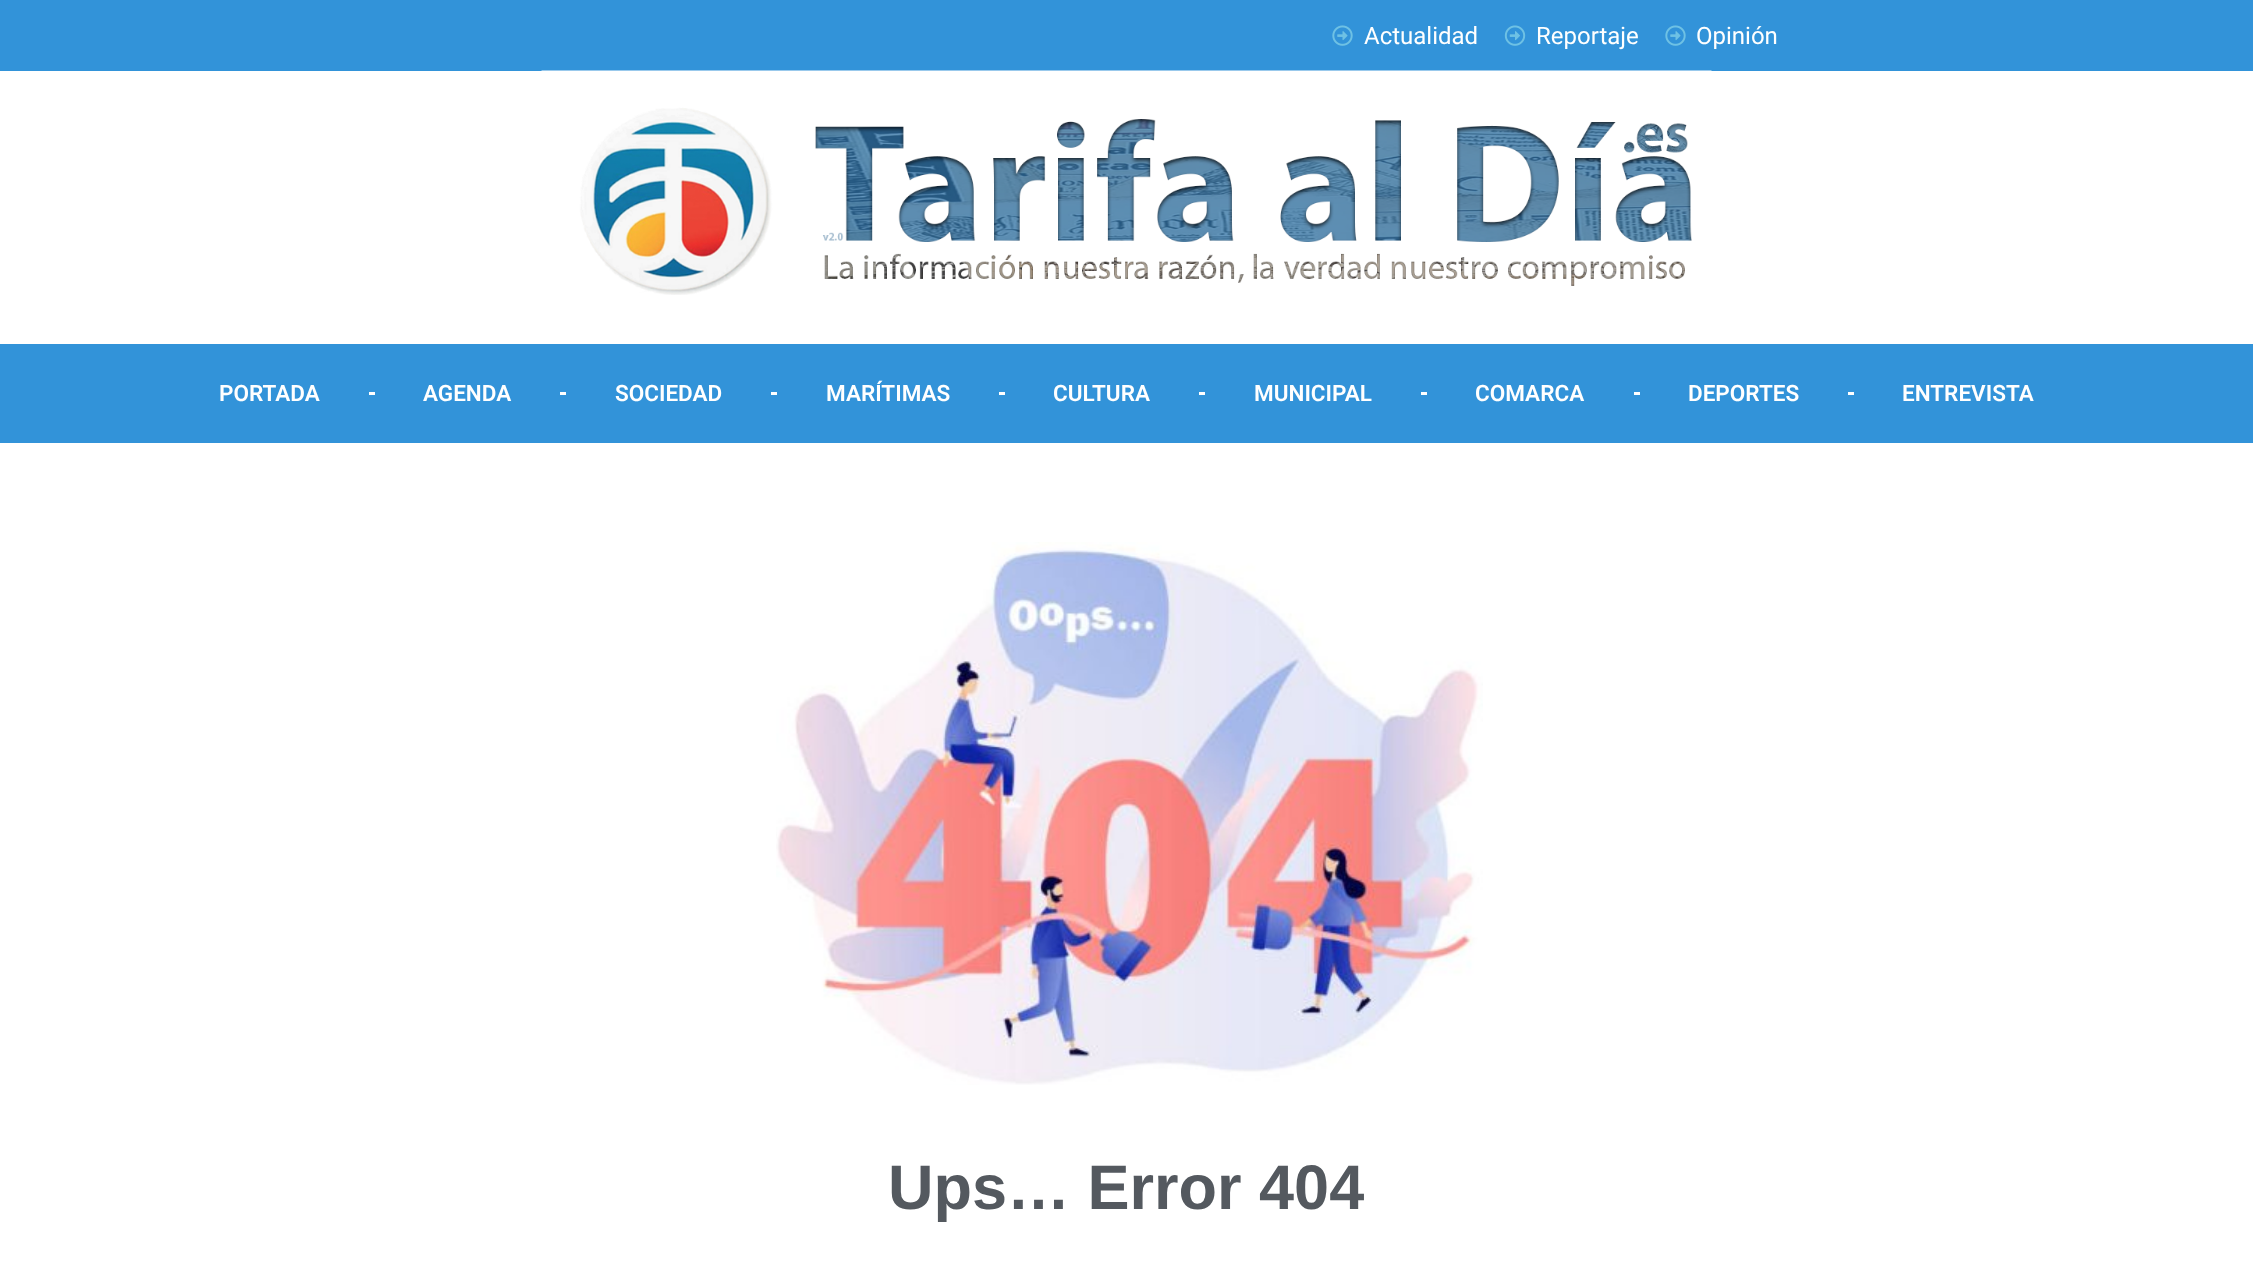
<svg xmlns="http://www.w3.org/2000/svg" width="2253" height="1266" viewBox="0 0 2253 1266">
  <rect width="100%" height="100%" fill="#fff"/>
  <path d="M0 0h2253v71H0z" fill="#3293d9"/>
  <image x="1332" y="25" width="21" height="21" href="img/1.png"/>
  <image x="1504" y="25" width="22" height="21" href="img/2.png"/>
  <image x="1665" y="25" width="21" height="21" href="img/1.png"/>
  <image x="541" y="70" width="1171" height="225" href="img/3.png"/>
  <path d="M0 344h2253v99H0z" fill="#3293d9"/>
  <path d="M369 392h6v3H369z" fill="#fff"/>
  <path d="M560 392h6v3H560z" fill="#fff"/>
  <path d="M771 392h6v3H771z" fill="#fff"/>
  <path d="M999 392h6v3H999z" fill="#fff"/>
  <path d="M1199 392h6v3H1199z" fill="#fff"/>
  <path d="M1421 392h6v3H1421z" fill="#fff"/>
  <path d="M1634 392h6v3H1634z" fill="#fff"/>
  <path d="M1848 392h6v3H1848z" fill="#fff"/>
  <image x="776" y="542" width="707" height="543" href="img/4.png"/>
  <g font-family="Roboto" font-size="24" fill="#fff">
    <text x="1364" y="44">Actualidad</text>
    <text x="1536" y="44">Reportaje</text>
    <text x="1696" y="44">Opinión</text>
  </g>
  <g font-family="Roboto" font-size="22.5" font-weight="600" fill="#fff">
    <text x="219" y="401">PORTADA</text>
    <text x="423" y="401">AGENDA</text>
    <text x="615" y="401">SOCIEDAD</text>
    <text x="826" y="401">MARÍTIMAS</text>
    <text x="1053" y="401">CULTURA</text>
    <text x="1254" y="401">MUNICIPAL</text>
    <text x="1475" y="401">COMARCA</text>
    <text x="1688" y="401">DEPORTES</text>
    <text x="1902" y="401">ENTREVISTA</text>
  </g>
  <text x="888" y="1209" font-family="Liberation Sans" font-size="63" font-weight="bold" fill="#54595f">Ups… Error 404</text>
</svg>
